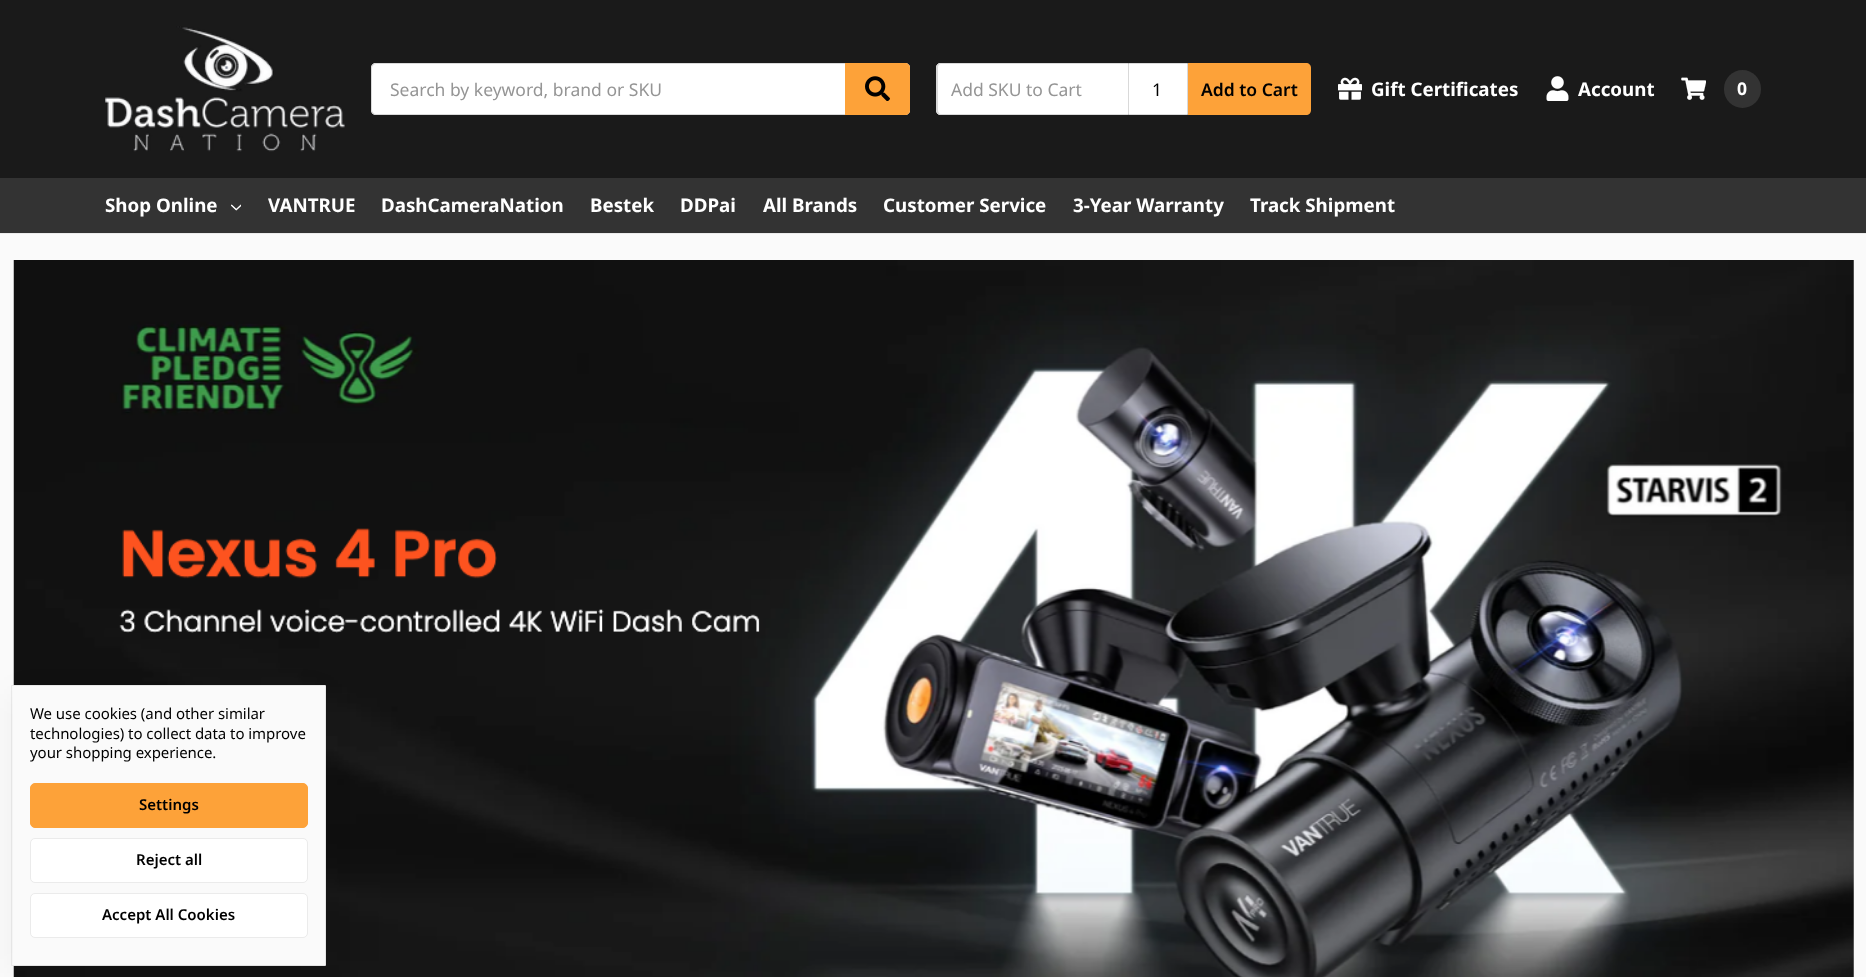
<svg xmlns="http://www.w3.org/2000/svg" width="1866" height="977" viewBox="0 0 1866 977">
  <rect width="100%" height="100%" fill="#fafafa"/>
  <path d="M0 0h1866v178H0z" fill="#1a1a1a"/>
  <path d="M0 233h1866v1H0z" fill="#ebebeb"/>
  <image x="105" y="26" width="240" height="126" href="img/1.png"/>
  <rect x="371" y="63" width="539" height="52" rx="5" fill="#fff"/>
  <path d="M376 63C373 63 371 65 371 68V110C371 113 373 115 376 115H905C906 115 907 115 908 114H376C374 114 372 112 372 110V68C372 66 374 64 376 64H908L905 63ZM909 65V113C910 112 910 111 910 110V68C910 67 910 66 909 65Z" fill="#d9d9d9" fill-rule="evenodd"/>
  <path d="M845 63H905C908 63 910 65 910 68V110C910 113 908 115 905 115H845Z" fill="#fda239"/>
  <image x="865" y="76" width="25" height="25" href="img/2.png"/>
  <path d="M941 63H1128V115H941C938 115 936 113 936 110V68C936 65 938 63 941 63Z" fill="#fff"/>
  <path d="M941 64H1128V63H941C938 63 936 65 936 68V110C936 113 938 115 941 115H1128V114H941C939 114 938 112 938 110V68C938 65 939 64 941 64Z" fill="#d9d9d9"/>
  <path d="M1128.5 63.5h59v51H1128.5z" fill="#fff" stroke="#d9d9d9"/>
  <path d="M1188 63H1306C1309 63 1311 65 1311 68V110C1311 113 1309 115 1306 115H1188Z" fill="#fda239"/>
  <image x="1338" y="77" width="24" height="23" href="img/3.png"/>
  <image x="1546" y="76" width="23" height="25" href="img/4.png"/>
  <image x="1681" y="77" width="25" height="23" href="img/5.png"/>
  <rect x="1724" y="70" width="37" height="38" rx="18.5" fill="#333"/>
  <path d="M0 178h1866v55H0z" fill="#333"/>
  <image x="231" y="204" width="10" height="7" href="img/6.png"/>
  <image x="13" y="260" width="1841" height="717" href="img/7.png"/>
  <path d="M11.5 685.5h314v280H11.5z" fill="none" stroke="#ebebeb"/>
  <path d="M13 694h312v279H13z" fill="#0000000d" filter="blur(15px)"/>
  <path d="M13 686h312v279H13z" fill="#fafafa"/>
  <rect x="30.5" y="783.5" width="277" height="44" rx="4.5" fill="#fda239" stroke="#fda239"/>
  <rect x="30.5" y="838.5" width="277" height="44" rx="4.5" fill="#fff" stroke="#ebebeb"/>
  <rect x="30.5" y="893.5" width="277" height="44" rx="4.5" fill="#fff" stroke="#ebebeb"/>
  <g font-family="Noto Sans" font-size="17.5" fill="#959595">
    <text x="390" y="96">Search by keyword, brand or SKU</text>
    <text x="951" y="96">Add SKU to Cart</text>
  </g>
  <text x="1152" y="96" font-family="Noto Sans" font-size="17.5" fill="#000">1</text>
  <text x="1201" y="96" font-family="Noto Sans" font-size="17.5" font-weight="600" fill="#000">Add to Cart</text>
  <g font-family="Noto Sans" font-size="18.75" font-weight="bold" fill="#fff">
    <text x="1371" y="96">Gift Certificates</text>
    <text x="1578" y="96">Account</text>
  </g>
  <text x="1737" y="95" font-family="Noto Sans" font-size="17.5" font-weight="bold" fill="#fff">0</text>
  <g font-family="Noto Sans" font-size="18.75" font-weight="bold" fill="#fff">
    <text x="105" y="212">Shop Online</text>
    <text x="268" y="212">VANTRUE</text>
    <text x="381" y="212">DashCameraNation</text>
    <text x="590" y="212">Bestek</text>
    <text x="680" y="212">DDPai</text>
    <text x="763" y="212">All Brands</text>
    <text x="883" y="212">Customer Service</text>
    <text x="1073" y="212">3-Year Warranty</text>
    <text x="1250" y="212">Track Shipment</text>
  </g>
  <g font-family="Noto Sans" font-size="15" letter-spacing="-0.05" fill="#000">
    <text x="30" y="719">We use cookies (and other similar</text>
    <text x="30" y="739">technologies) to collect data to improve</text>
    <text x="30" y="758">your shopping experience.</text>
  </g>
  <g font-family="Noto Sans" font-size="15" font-weight="600" fill="#000">
    <text x="139" y="810">Settings</text>
    <text x="136" y="865">Reject all</text>
    <text x="102" y="920">Accept All Cookies</text>
  </g>
</svg>
